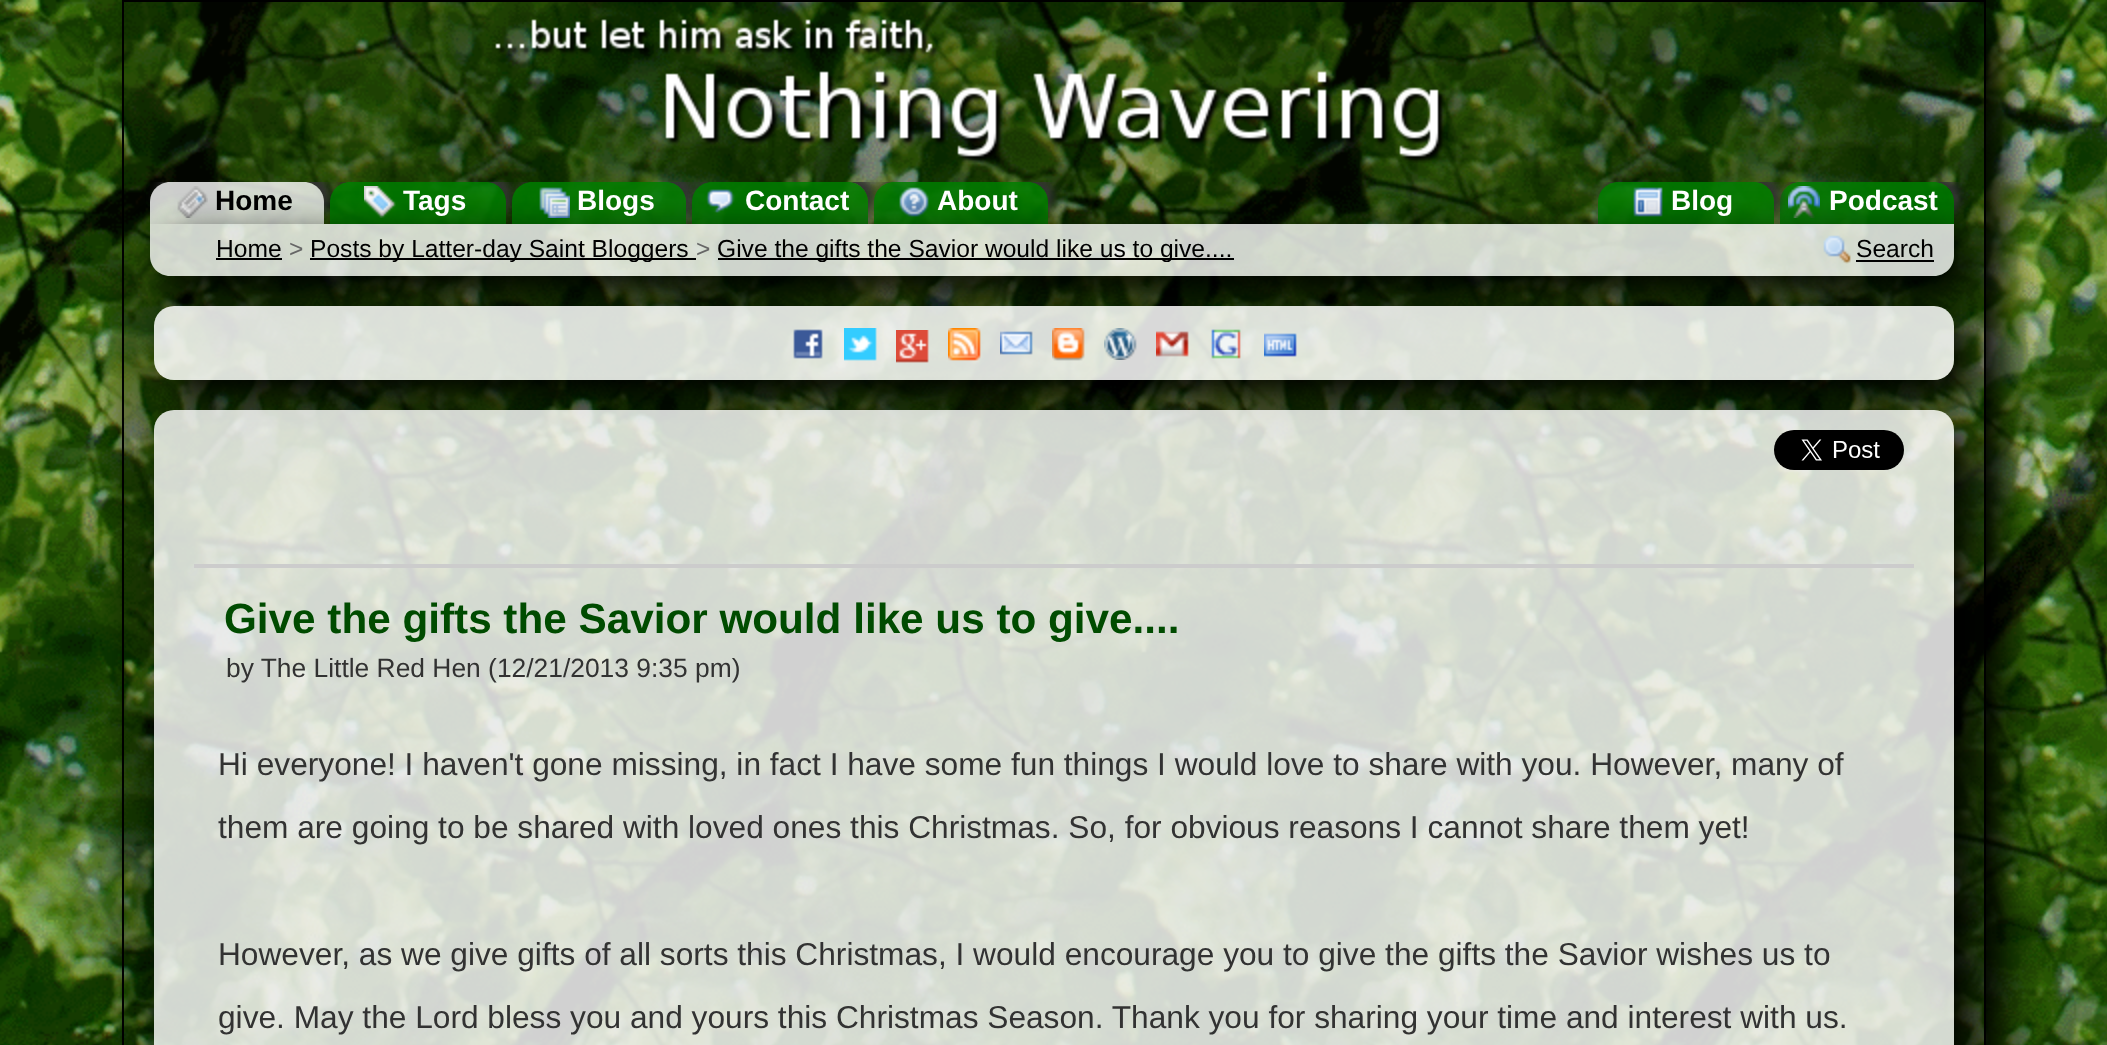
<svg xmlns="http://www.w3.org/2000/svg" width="2107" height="1045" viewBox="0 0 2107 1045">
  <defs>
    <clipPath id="clip1"><path d="M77 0H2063V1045H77ZM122 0H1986V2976H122Z" clip-rule="evenodd"/></clipPath>
    <clipPath id="clip2"><path d="M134 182h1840v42H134z"/></clipPath>
    <clipPath id="clip3"><path d="M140 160H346V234H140ZM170 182H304C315 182 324 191 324 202V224H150V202C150 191 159 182 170 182Z" clip-rule="evenodd"/></clipPath>
    <clipPath id="clip4"><path d="M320 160H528V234H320ZM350 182H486C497 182 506 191 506 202V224H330V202C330 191 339 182 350 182Z" clip-rule="evenodd"/></clipPath>
    <clipPath id="clip5"><path d="M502 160H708V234H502ZM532 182H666C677 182 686 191 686 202V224H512V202C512 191 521 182 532 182Z" clip-rule="evenodd"/></clipPath>
    <clipPath id="clip6"><path d="M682 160H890V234H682ZM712 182H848C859 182 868 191 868 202V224H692V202C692 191 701 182 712 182Z" clip-rule="evenodd"/></clipPath>
    <clipPath id="clip7"><path d="M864 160H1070V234H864ZM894 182H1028C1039 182 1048 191 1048 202V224H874V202C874 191 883 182 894 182Z" clip-rule="evenodd"/></clipPath>
    <clipPath id="clip8"><path d="M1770 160H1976V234H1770ZM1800 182H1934C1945 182 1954 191 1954 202V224H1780V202C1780 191 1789 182 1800 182Z" clip-rule="evenodd"/></clipPath>
    <clipPath id="clip9"><path d="M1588 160H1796V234H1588ZM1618 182H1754C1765 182 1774 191 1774 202V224H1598V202C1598 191 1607 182 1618 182Z" clip-rule="evenodd"/></clipPath>
    <clipPath id="clip10"><path d="M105 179H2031V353H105ZM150 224H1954V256C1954 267 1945 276 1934 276H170C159 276 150 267 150 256Z" clip-rule="evenodd"/></clipPath>
    <clipPath id="clip11"><path d="M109 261H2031V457H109ZM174 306H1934C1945 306 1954 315 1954 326V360C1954 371 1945 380 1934 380H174C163 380 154 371 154 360V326C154 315 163 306 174 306Z" clip-rule="evenodd"/></clipPath>
    <clipPath id="clip12"><path d="M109 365H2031V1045H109ZM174 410H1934C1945 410 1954 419 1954 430V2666C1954 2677 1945 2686 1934 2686H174C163 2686 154 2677 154 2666V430C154 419 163 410 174 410Z" clip-rule="evenodd"/></clipPath>
  </defs>
  <rect width="100%" height="100%" fill="#fff"/>
  <image x="0" y="0" width="2107" height="1045" href="img/1.png"/>
  <g clip-path="url(#clip1)">
    <path d="M138 16h1864v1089H138z" fill="#000" filter="blur(20px)"/>
  </g>
  <path d="M123 1h1862v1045H123z" fill="#00000040" stroke="#000" stroke-width="2"/>
  <image x="495" y="19" width="950" height="144" href="img/2.png"/>
  <g clip-path="url(#clip2)">
    <g clip-path="url(#clip3)">
      <rect x="156" y="176" width="174" height="42" rx="20" fill="#333" filter="blur(5px)"/>
    </g>
  </g>
  <path d="M170 182H304C315 182 324 191 324 202V224H150V202C150 191 159 182 170 182Z" fill="#ffffffcc"/>
  <image x="177" y="186" width="31" height="32" href="img/3.png"/>
  <g clip-path="url(#clip2)">
    <g clip-path="url(#clip4)">
      <rect x="336" y="176" width="176" height="42" rx="20" fill="#333" filter="blur(5px)"/>
    </g>
  </g>
  <path d="M350 182H486C497 182 506 191 506 202V224H330V202C330 191 339 182 350 182Z" fill="#007e00d9"/>
  <image x="364" y="186" width="32" height="32" href="img/4.png"/>
  <g clip-path="url(#clip2)">
    <g clip-path="url(#clip5)">
      <rect x="518" y="176" width="174" height="42" rx="20" fill="#333" filter="blur(5px)"/>
    </g>
  </g>
  <path d="M532 182H666C677 182 686 191 686 202V224H512V202C512 191 521 182 532 182Z" fill="#007e00d9"/>
  <image x="539" y="187" width="31" height="31" href="img/5.png"/>
  <g clip-path="url(#clip2)">
    <g clip-path="url(#clip6)">
      <rect x="698" y="176" width="176" height="42" rx="20" fill="#333" filter="blur(5px)"/>
    </g>
  </g>
  <path d="M712 182H848C859 182 868 191 868 202V224H692V202C692 191 701 182 712 182Z" fill="#007e00d9"/>
  <image x="705" y="189" width="30" height="24" href="img/6.png"/>
  <g clip-path="url(#clip2)">
    <g clip-path="url(#clip7)">
      <rect x="880" y="176" width="174" height="42" rx="20" fill="#333" filter="blur(5px)"/>
    </g>
  </g>
  <path d="M894 182H1028C1039 182 1048 191 1048 202V224H874V202C874 191 883 182 894 182Z" fill="#007e00d9"/>
  <image x="899" y="187" width="30" height="30" href="img/7.png"/>
  <g clip-path="url(#clip2)">
    <g clip-path="url(#clip8)">
      <rect x="1786" y="176" width="174" height="42" rx="20" fill="#333" filter="blur(5px)"/>
    </g>
  </g>
  <path d="M1800 182H1934C1945 182 1954 191 1954 202V224H1780V202C1780 191 1789 182 1800 182Z" fill="#007e00d9"/>
  <image x="1788" y="186" width="32" height="32" href="img/9.png"/>
  <g clip-path="url(#clip2)">
    <g clip-path="url(#clip9)">
      <rect x="1604" y="176" width="176" height="42" rx="20" fill="#333" filter="blur(5px)"/>
    </g>
  </g>
  <path d="M1618 182H1754C1765 182 1774 191 1774 202V224H1598V202C1598 191 1607 182 1618 182Z" fill="#007e00d9"/>
  <image x="1633" y="187" width="30" height="30" href="img/8.png"/>
  <g clip-path="url(#clip10)">
    <rect x="166" y="240" width="1804" height="52" rx="20" fill="#000" filter="blur(20px)"/>
  </g>
  <path d="M150 224H1954V256C1954 267 1945 276 1934 276H170C159 276 150 267 150 256Z" fill="#ffffffcc"/>
  <path d="M216 258h66v2H216z" fill="#000"/>
  <path d="M310 258h386v2H310z" fill="#000"/>
  <path d="M718 258h516v2H718z" fill="#000"/>
  <image x="1823" y="235" width="28" height="29" href="img/10.png"/>
  <path d="M1856 260h78v2H1856z" fill="#000"/>
  <g clip-path="url(#clip11)">
    <rect x="170" y="322" width="1800" height="74" rx="20" fill="#000" filter="blur(20px)"/>
  </g>
  <rect x="154" y="306" width="1800" height="74" rx="20" fill="#ffffffd9"/>
  <image x="793" y="329" width="30" height="30" href="img/11.png"/>
  <image x="844" y="328" width="33" height="33" href="img/12.png"/>
  <image x="896" y="330" width="33" height="33" href="img/13.png"/>
  <image x="948" y="328" width="33" height="33" href="img/14.png"/>
  <image x="1000" y="331" width="33" height="24" href="img/15.png"/>
  <image x="1052" y="328" width="33" height="33" href="img/16.png"/>
  <image x="1104" y="328" width="33" height="32" href="img/17.png"/>
  <image x="1156" y="331" width="33" height="26" href="img/18.png"/>
  <image x="1211" y="329" width="30" height="30" href="img/19.png"/>
  <image x="1264" y="333" width="33" height="24" href="img/20.png"/>
  <g clip-path="url(#clip12)">
    <rect x="170" y="426" width="1800" height="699" rx="20" fill="#000" filter="blur(20px)"/>
  </g>
  <rect x="154" y="410" width="1800" height="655" rx="20" fill="#ffffffd1"/>
  <path d="M194 564h1720v4H194z" fill="#ccc"/>
  <image x="1774" y="430" width="130" height="40" href="img/21.png"/>
  <text x="215" y="210" font-family="Liberation Sans" font-size="28" font-weight="bold" fill="#000">Home</text>
  <g font-family="Liberation Sans" font-size="28" font-weight="bold" fill="#fff">
    <text x="403" y="210">Tags</text>
    <text x="577" y="210">Blogs</text>
    <text x="745" y="210">Contact</text>
    <text x="937" y="210">About</text>
    <text x="1671" y="210">Blog</text>
    <text x="1829" y="210">Podcast</text>
  </g>
  <text x="216" y="257" font-family="Liberation Sans" font-size="24.6" fill="#000">Home</text>
  <text x="289" y="257" font-family="Liberation Sans" font-size="24.6" fill="#666">&gt;</text>
  <text x="310" y="257" font-family="Liberation Sans" font-size="24.6" fill="#000">Posts by Latter-day Saint Bloggers</text>
  <text x="696" y="257" font-family="Liberation Sans" font-size="24.6" fill="#666">&gt;</text>
  <g font-family="Liberation Sans" font-size="24.6" fill="#000">
    <text x="717" y="257">Give the gifts the Savior would like us to give....</text>
    <text x="1856" y="257">Search</text>
  </g>
  <text x="224" y="633" font-family="Liberation Sans" font-size="42.25" font-weight="bold" fill="#004b00">Give the gifts the Savior would like us to give....</text>
  <text x="226" y="677" font-family="Liberation Sans" font-size="26.4" fill="#323232">by The Little Red Hen (12/21/2013 9:35 pm)</text>
  <g font-family="Liberation Sans" font-size="31.68" fill="#323232">
    <text x="218" y="775">Hi everyone! I haven't gone missing, in fact I have some fun things I would love to share with you. However, many of</text>
    <text x="218" y="838">them are going to be shared with loved ones this Christmas. So, for obvious reasons I cannot share them yet!</text>
    <text x="218" y="965">However, as we give gifts of all sorts this Christmas, I would encourage you to give the gifts the Savior wishes us to</text>
    <text x="218" y="1028">give. May the Lord bless you and yours this Christmas Season. Thank you for sharing your time and interest with us.</text>
  </g>
</svg>
